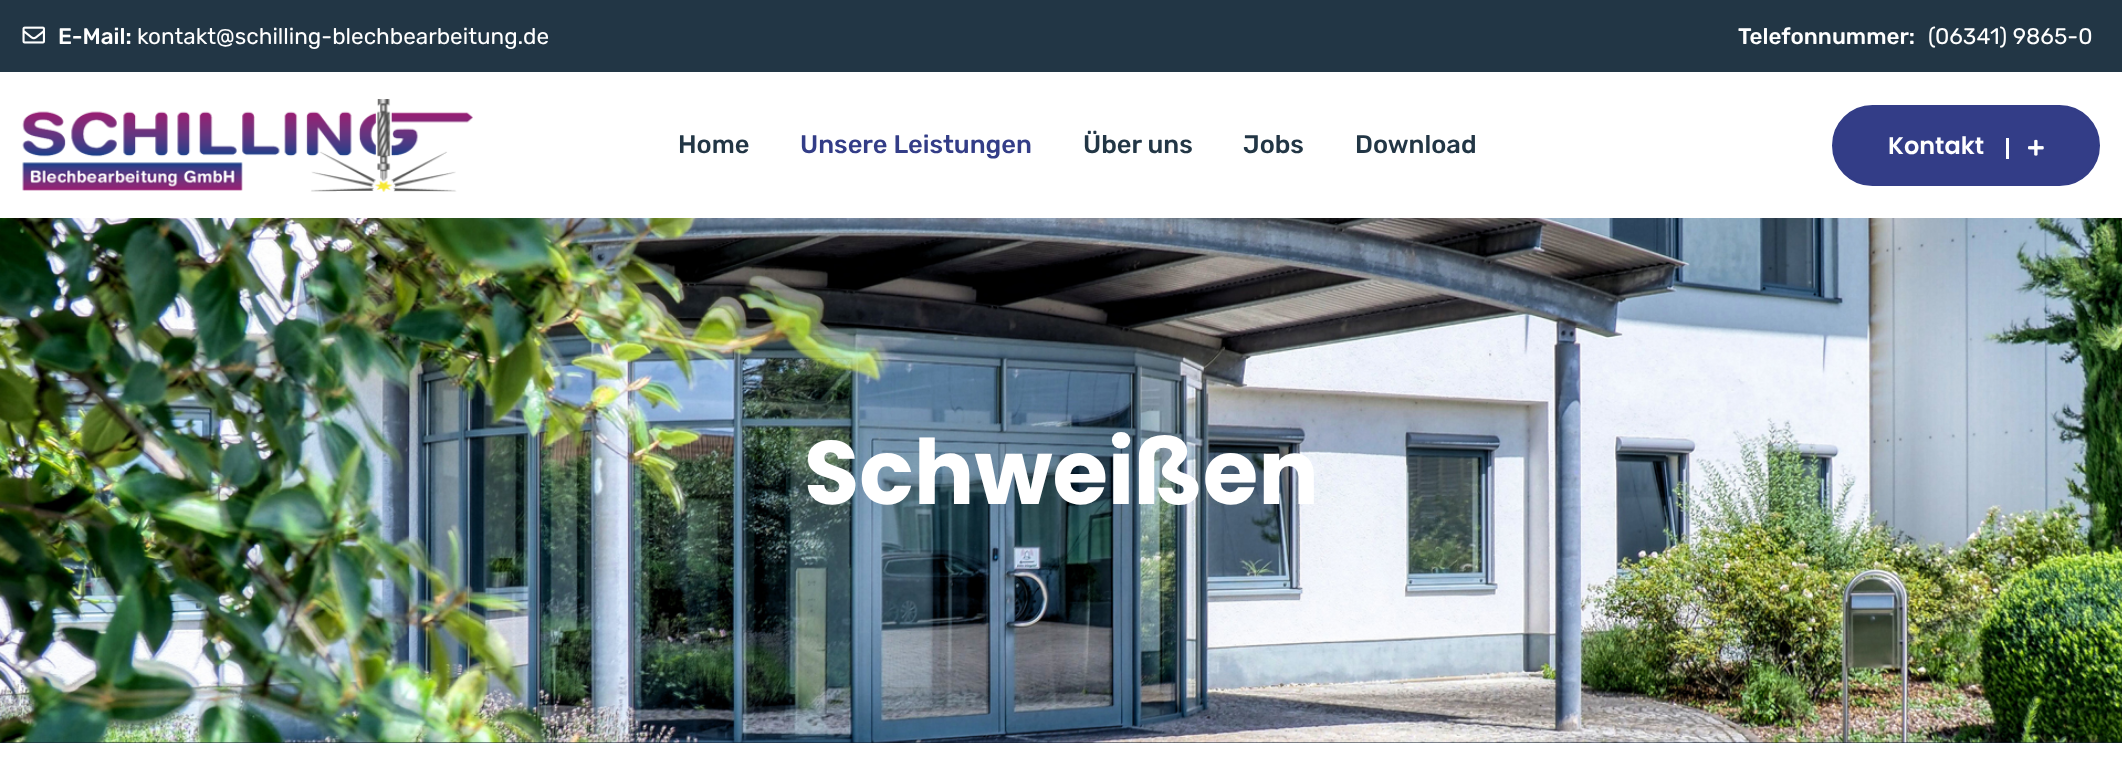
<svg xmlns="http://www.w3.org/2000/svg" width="2122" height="783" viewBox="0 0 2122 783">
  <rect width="100%" height="100%" fill="#fff"/>
  <path d="M0 0h2122v72H0z" fill="#223645"/>
  <image x="22" y="26" width="23" height="18" href="img/1.png"/>
  <image x="22" y="99" width="451" height="93" href="img/2.png"/>
  <rect x="1833.5" y="106.5" width="265" height="78" rx="39" fill="#333d87" stroke="#333d87" stroke-width="3"/>
  <path d="M2006 138h3v21H2006z" fill="#fff"/>
  <image x="2028" y="139" width="16" height="17" href="img/3.png"/>
  <path d="M0 742h2122v1H0z" fill="#152133"/>
  <image x="0" y="218" width="2122" height="525" href="img/4.png"/>
  <text x="58" y="44" font-family="Rubik" font-size="22.5" font-weight="500" fill="#fff">E-Mail:</text>
  <text x="137" y="44" font-family="Rubik" font-size="22.5" fill="#fff">kontakt@schilling-blechbearbeitung.de</text>
  <text x="1738" y="44" font-family="Rubik" font-size="22.5" font-weight="500" fill="#fff">Telefonnummer:</text>
  <text x="1928" y="44" font-family="Rubik" font-size="22.5" fill="#fff">(06341) 9865-0</text>
  <text x="678" y="153" font-family="Rubik" font-size="25.5" font-weight="500" fill="#223645">Home</text>
  <text x="800" y="153" font-family="Rubik" font-size="25.5" font-weight="500" fill="#333d87">Unsere Leistungen</text>
  <g font-family="Rubik" font-size="25.5" font-weight="500" fill="#223645">
    <text x="1083" y="153">Über uns</text>
    <text x="1243" y="153">Jobs</text>
    <text x="1355" y="153">Download</text>
  </g>
  <text x="1888" y="154" font-family="Poppins" font-size="24" font-weight="600" fill="#fff">Kontakt</text>
  <text x="804" y="504" font-family="Poppins" font-size="90" font-weight="bold" fill="#fff">Schweißen</text>
</svg>
